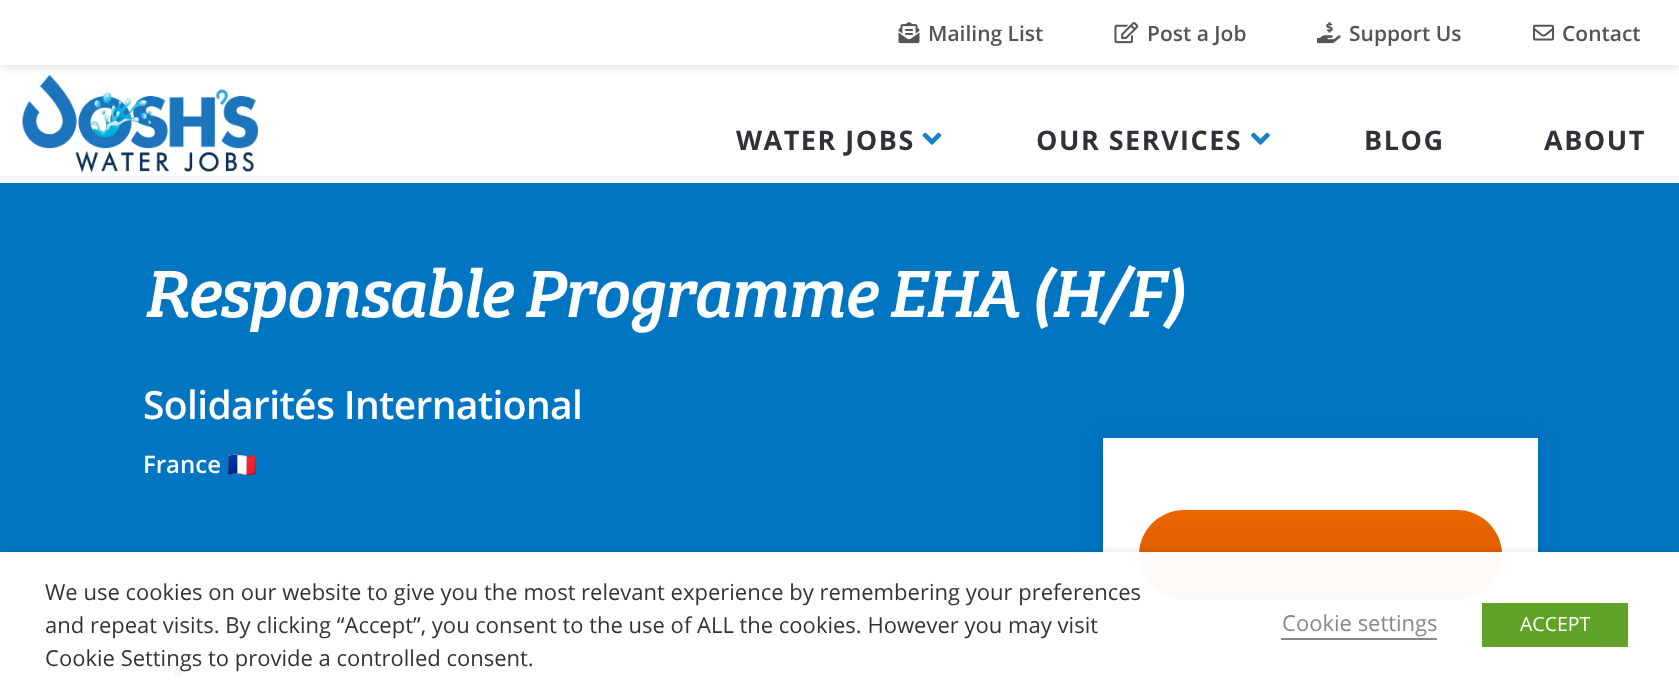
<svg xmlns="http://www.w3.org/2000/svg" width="1679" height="695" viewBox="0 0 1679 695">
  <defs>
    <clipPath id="clip1"><path d="M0 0H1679V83H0ZM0 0H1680V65H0Z" clip-rule="evenodd"/></clipPath>
    <linearGradient id="g1" gradientUnits="userSpaceOnUse" x1="1320" y1="510" x2="1320" y2="600"><stop offset="0" stop-color="#ea6700"/><stop offset="1" stop-color="#da5400"/></linearGradient>
    <clipPath id="clip2"><path d="M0 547h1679v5H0z"/></clipPath>
  </defs>
  <rect width="100%" height="100%" fill="#fff"/>
  <g clip-path="url(#clip1)">
    <path d="M0 3h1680v65H0z" fill="#0000001a" filter="blur(4.5px)"/>
  </g>
  <image x="898" y="22" width="22" height="22" href="img/1.png"/>
  <image x="1114" y="22" width="25" height="22" href="img/2.png"/>
  <image x="1317" y="22" width="24" height="22" href="img/3.png"/>
  <image x="1533" y="24" width="21" height="17" href="img/4.png"/>
  <image x="22" y="75" width="236" height="98" href="img/5.png"/>
  <image x="922" y="132" width="20" height="13" href="img/6.png"/>
  <image x="1251" y="132" width="19" height="13" href="img/7.png"/>
  <path d="M0 183h1679v371H0z" fill="#0075c2"/>
  <circle cx="178.5" cy="672.5" r="4.5" fill="#191a23"/>
  <path d="M1103 438h435v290H1103z" fill="#191a231c" filter="blur(11px)"/>
  <path d="M1103 438h435v257H1103z" fill="#fff"/>
  <rect x="1139" y="510" width="363" height="90" rx="45" fill="url(#g1)"/>
  <path d="M1139 648h363v2H1139z" fill="#e8e8e9"/>
  <g clip-path="url(#clip2)">
    <path d="M0 560h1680v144H0z" fill="#00000080" filter="blur(7.5px)"/>
  </g>
  <path d="M0 552h1679v143H0z" fill="#fffffff7"/>
  <path d="M1281 638h156v2H1281z" fill="#898888"/>
  <path d="M1482 603h146v44H1482z" fill="#61a229"/>
  <g font-family="Open Sans" font-size="21" font-weight="600" fill="#53535a">
    <text x="928" y="41">Mailing List</text>
    <text x="1147" y="41">Post a Job</text>
    <text x="1349" y="41">Support Us</text>
    <text x="1562" y="41">Contact</text>
  </g>
  <g font-family="Open Sans" font-size="27" font-weight="bold" letter-spacing="1.5" fill="#303139">
    <text x="736" y="150">WATER JOBS</text>
    <text x="1036" y="150">OUR SERVICES</text>
    <text x="1364" y="150">BLOG</text>
    <text x="1544" y="150">ABOUT</text>
  </g>
  <text x="143" y="317" font-family="Bree Serif" font-size="69" font-style="italic" letter-spacing="-1.75" fill="#fff">Responsable Programme EHA (H/F)</text>
  <text x="143" y="419" font-family="Open Sans" font-size="39" font-weight="600" letter-spacing="-0.65" fill="#fff">Solidarités International</text>
  <text x="143" y="473" font-family="Open Sans" font-size="24" font-weight="600" fill="#fff">France</text>
  <text x="227" y="473" font-family="Noto Color Emoji" font-size="24" font-weight="bold" fill="#fff">🇫🇷</text>
  <g font-family="Open Sans" font-size="22" fill="#333">
    <text x="45" y="600">We use cookies on our website to give you the most relevant experience by remembering your preferences</text>
    <text x="45" y="633">and repeat visits. By clicking “Accept”, you consent to the use of ALL the cookies. However you may visit</text>
    <text x="45" y="666">Cookie Settings to provide a controlled consent.</text>
  </g>
  <text x="1282" y="631" font-family="Open Sans" font-size="22" fill="#898888">Cookie settings</text>
  <text x="1520" y="631" font-family="Open Sans" font-size="19.5" fill="#fff">ACCEPT</text>
</svg>
